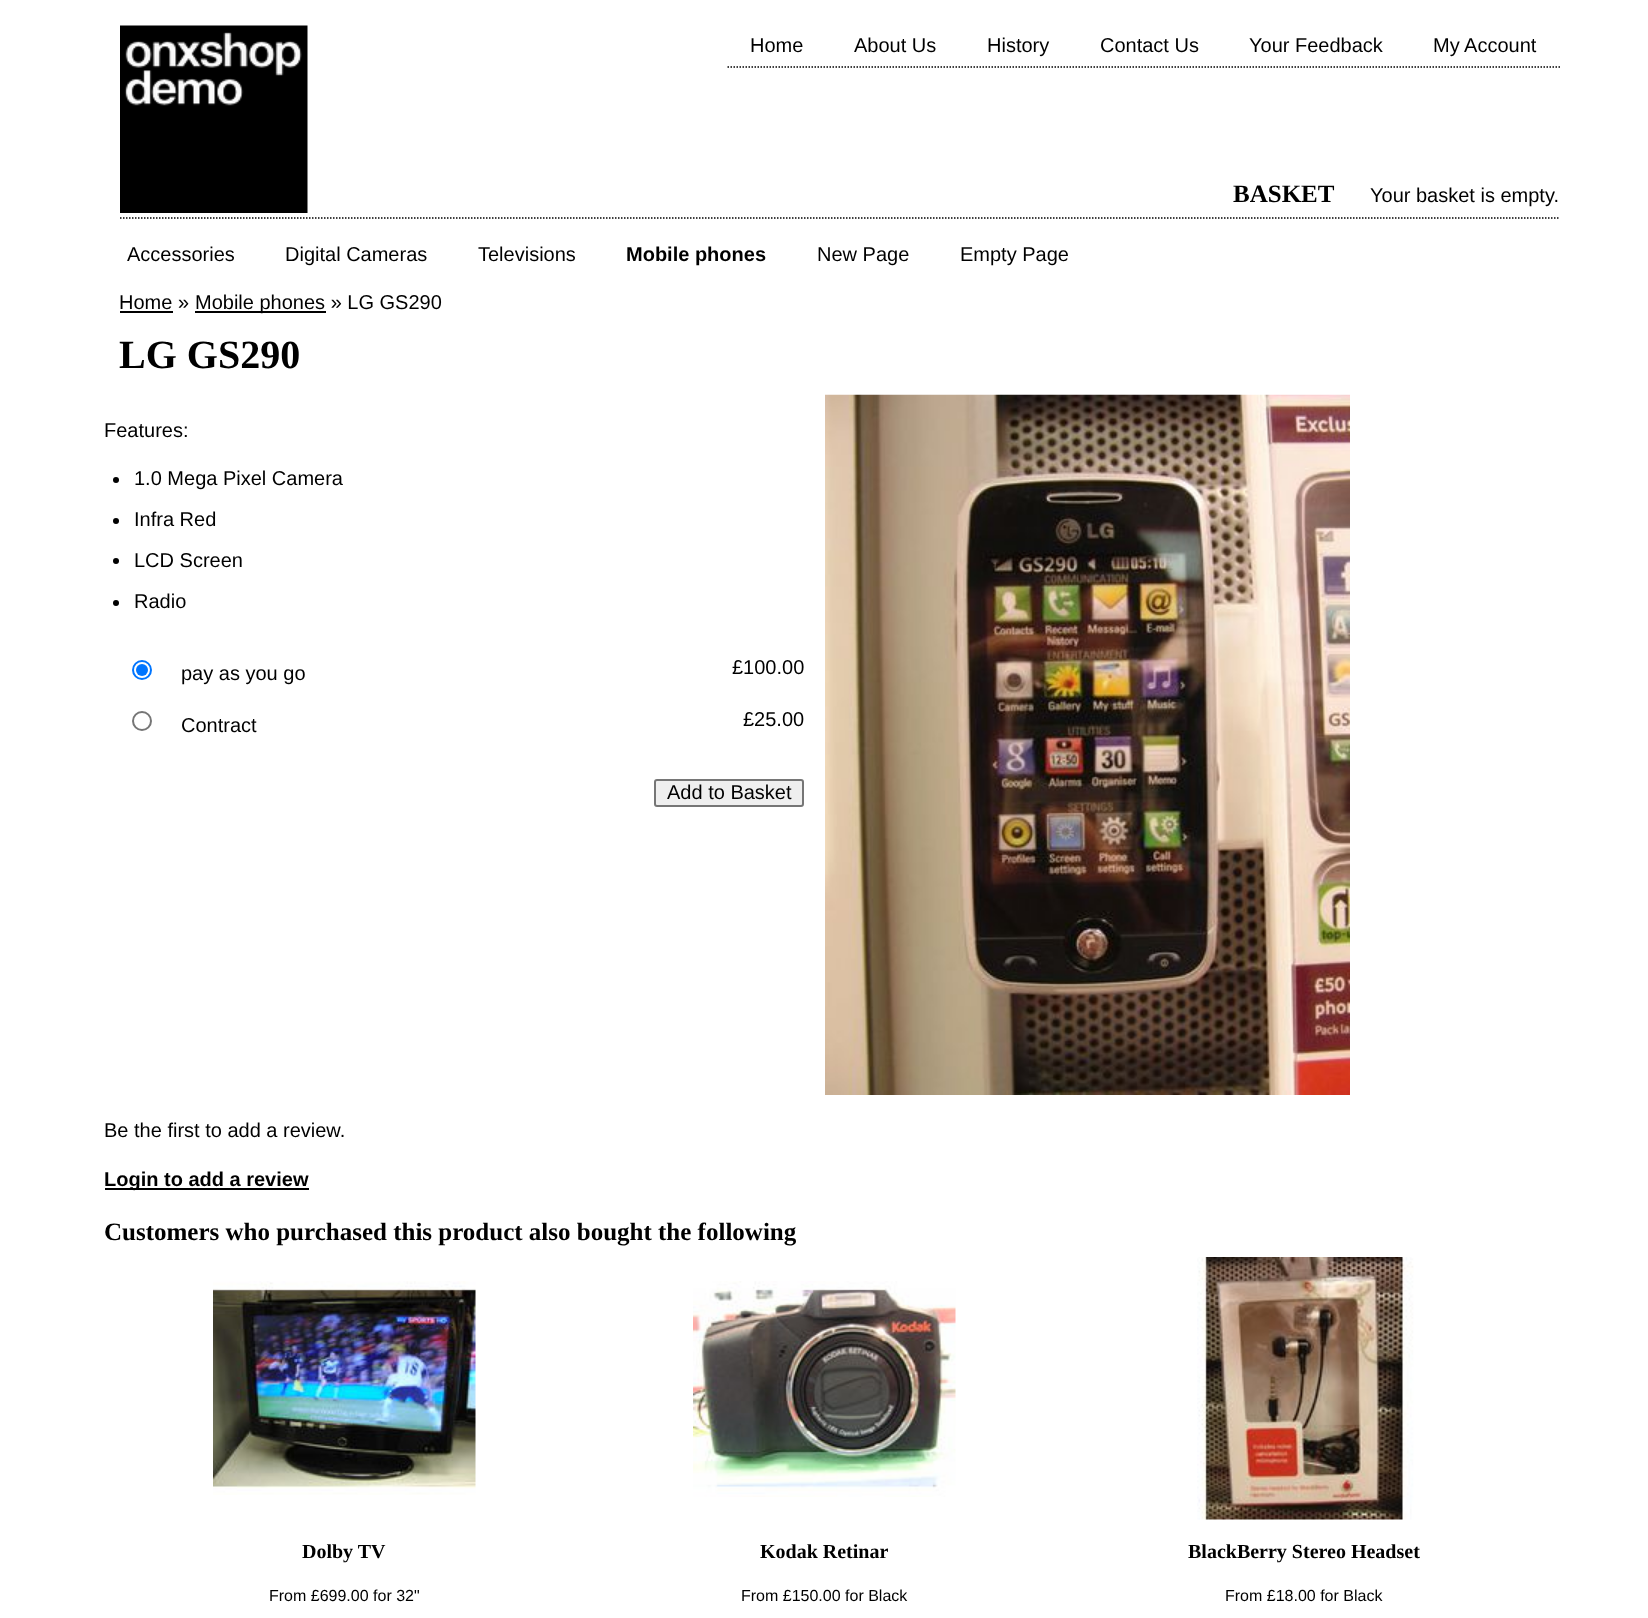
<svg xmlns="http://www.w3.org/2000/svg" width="1648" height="1618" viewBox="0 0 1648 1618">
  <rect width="100%" height="100%" fill="#fff"/>
  <path d="M120 218H1560" fill="none" stroke="#000" stroke-width="1.5" stroke-dasharray="1.5 1.5"/>
  <image x="120" y="25" width="188" height="188" href="img/1.png"/>
  <path d="M727.5 67H1560" fill="none" stroke="#000" stroke-width="1.5" stroke-dasharray="1.5 1.5"/>
  <path d="M120 311h53v2H120z" fill="#000"/>
  <path d="M195 311h131v2H195z" fill="#000"/>
  <circle cx="116" cy="480" r="3" fill="#000"/>
  <circle cx="116" cy="521" r="3" fill="#000"/>
  <circle cx="116" cy="561" r="3" fill="#000"/>
  <circle cx="116" cy="603" r="3" fill="#000"/>
  <circle cx="142" cy="670" r="9" fill="none" stroke="#0075ff" stroke-width="2"/>
  <circle cx="142" cy="670" r="6" fill="#0075ff"/>
  <circle cx="142" cy="721" r="9" fill="none" stroke="#767676" stroke-width="2"/>
  <rect x="655" y="780" width="148" height="26" rx="2" fill="#efefef" stroke="#767676" stroke-width="2"/>
  <image x="825" y="394" width="525" height="701" href="img/2.png"/>
  <path d="M105 1188h204v2H105z" fill="#000"/>
  <image x="213" y="1281" width="263" height="214" href="img/3.png"/>
  <image x="693" y="1281" width="263" height="216" href="img/4.png"/>
  <image x="1197" y="1257" width="217" height="263" href="img/5.png"/>
  <g font-family="Liberation Sans" font-size="20" fill="#000">
    <text x="750" y="52">Home</text>
    <text x="854" y="52">About Us</text>
    <text x="987" y="52">History</text>
    <text x="1100" y="52">Contact Us</text>
    <text x="1249" y="52">Your Feedback</text>
    <text x="1433" y="52">My Account</text>
  </g>
  <text x="1233" y="202" font-family="Liberation Serif" font-size="25" font-weight="bold" fill="#000">BASKET</text>
  <g font-family="Liberation Sans" font-size="20" fill="#000">
    <text x="1370" y="202">Your basket is empty.</text>
    <text x="127" y="261">Accessories</text>
    <text x="285" y="261">Digital Cameras</text>
    <text x="478" y="261">Televisions</text>
  </g>
  <text x="626" y="261" font-family="Liberation Sans" font-size="20" font-weight="bold" fill="#000">Mobile phones</text>
  <g font-family="Liberation Sans" font-size="20" fill="#000">
    <text x="817" y="261">New Page</text>
    <text x="960" y="261">Empty Page</text>
    <text x="119" y="309">Home »</text>
    <text x="195" y="309">Mobile phones » LG GS290</text>
  </g>
  <text x="119" y="368" font-family="Liberation Serif" font-size="40" font-weight="bold" fill="#000">LG GS290</text>
  <g font-family="Liberation Sans" font-size="20" fill="#000">
    <text x="104" y="437">Features:</text>
    <text x="134" y="485">1.0 Mega Pixel Camera</text>
    <text x="134" y="526">Infra Red</text>
    <text x="134" y="567">LCD Screen</text>
    <text x="134" y="608">Radio</text>
    <text x="732" y="674">£100.00</text>
    <text x="181" y="680">pay as you go</text>
    <text x="181" y="732">Contract</text>
    <text x="743" y="726">£25.00</text>
    <text x="667" y="799">Add to Basket</text>
    <text x="104" y="1137">Be the first to add a review.</text>
  </g>
  <text x="104" y="1186" font-family="Liberation Sans" font-size="20" font-weight="bold" fill="#000">Login to add a review</text>
  <text x="104" y="1240" font-family="Liberation Serif" font-size="25" font-weight="bold" fill="#000">Customers who purchased this product also bought the following</text>
  <text x="302" y="1558" font-family="Liberation Serif" font-size="20" font-weight="bold" fill="#000">Dolby TV</text>
  <text x="269" y="1601" font-family="Liberation Sans" font-size="16" fill="#000">From £699.00 for 32"</text>
  <text x="760" y="1558" font-family="Liberation Serif" font-size="20" font-weight="bold" fill="#000">Kodak Retinar</text>
  <text x="741" y="1601" font-family="Liberation Sans" font-size="16" fill="#000">From £150.00 for Black</text>
  <text x="1188" y="1558" font-family="Liberation Serif" font-size="20" font-weight="bold" fill="#000">BlackBerry Stereo Headset</text>
  <text x="1225" y="1601" font-family="Liberation Sans" font-size="16" fill="#000">From £18.00 for Black</text>
</svg>
